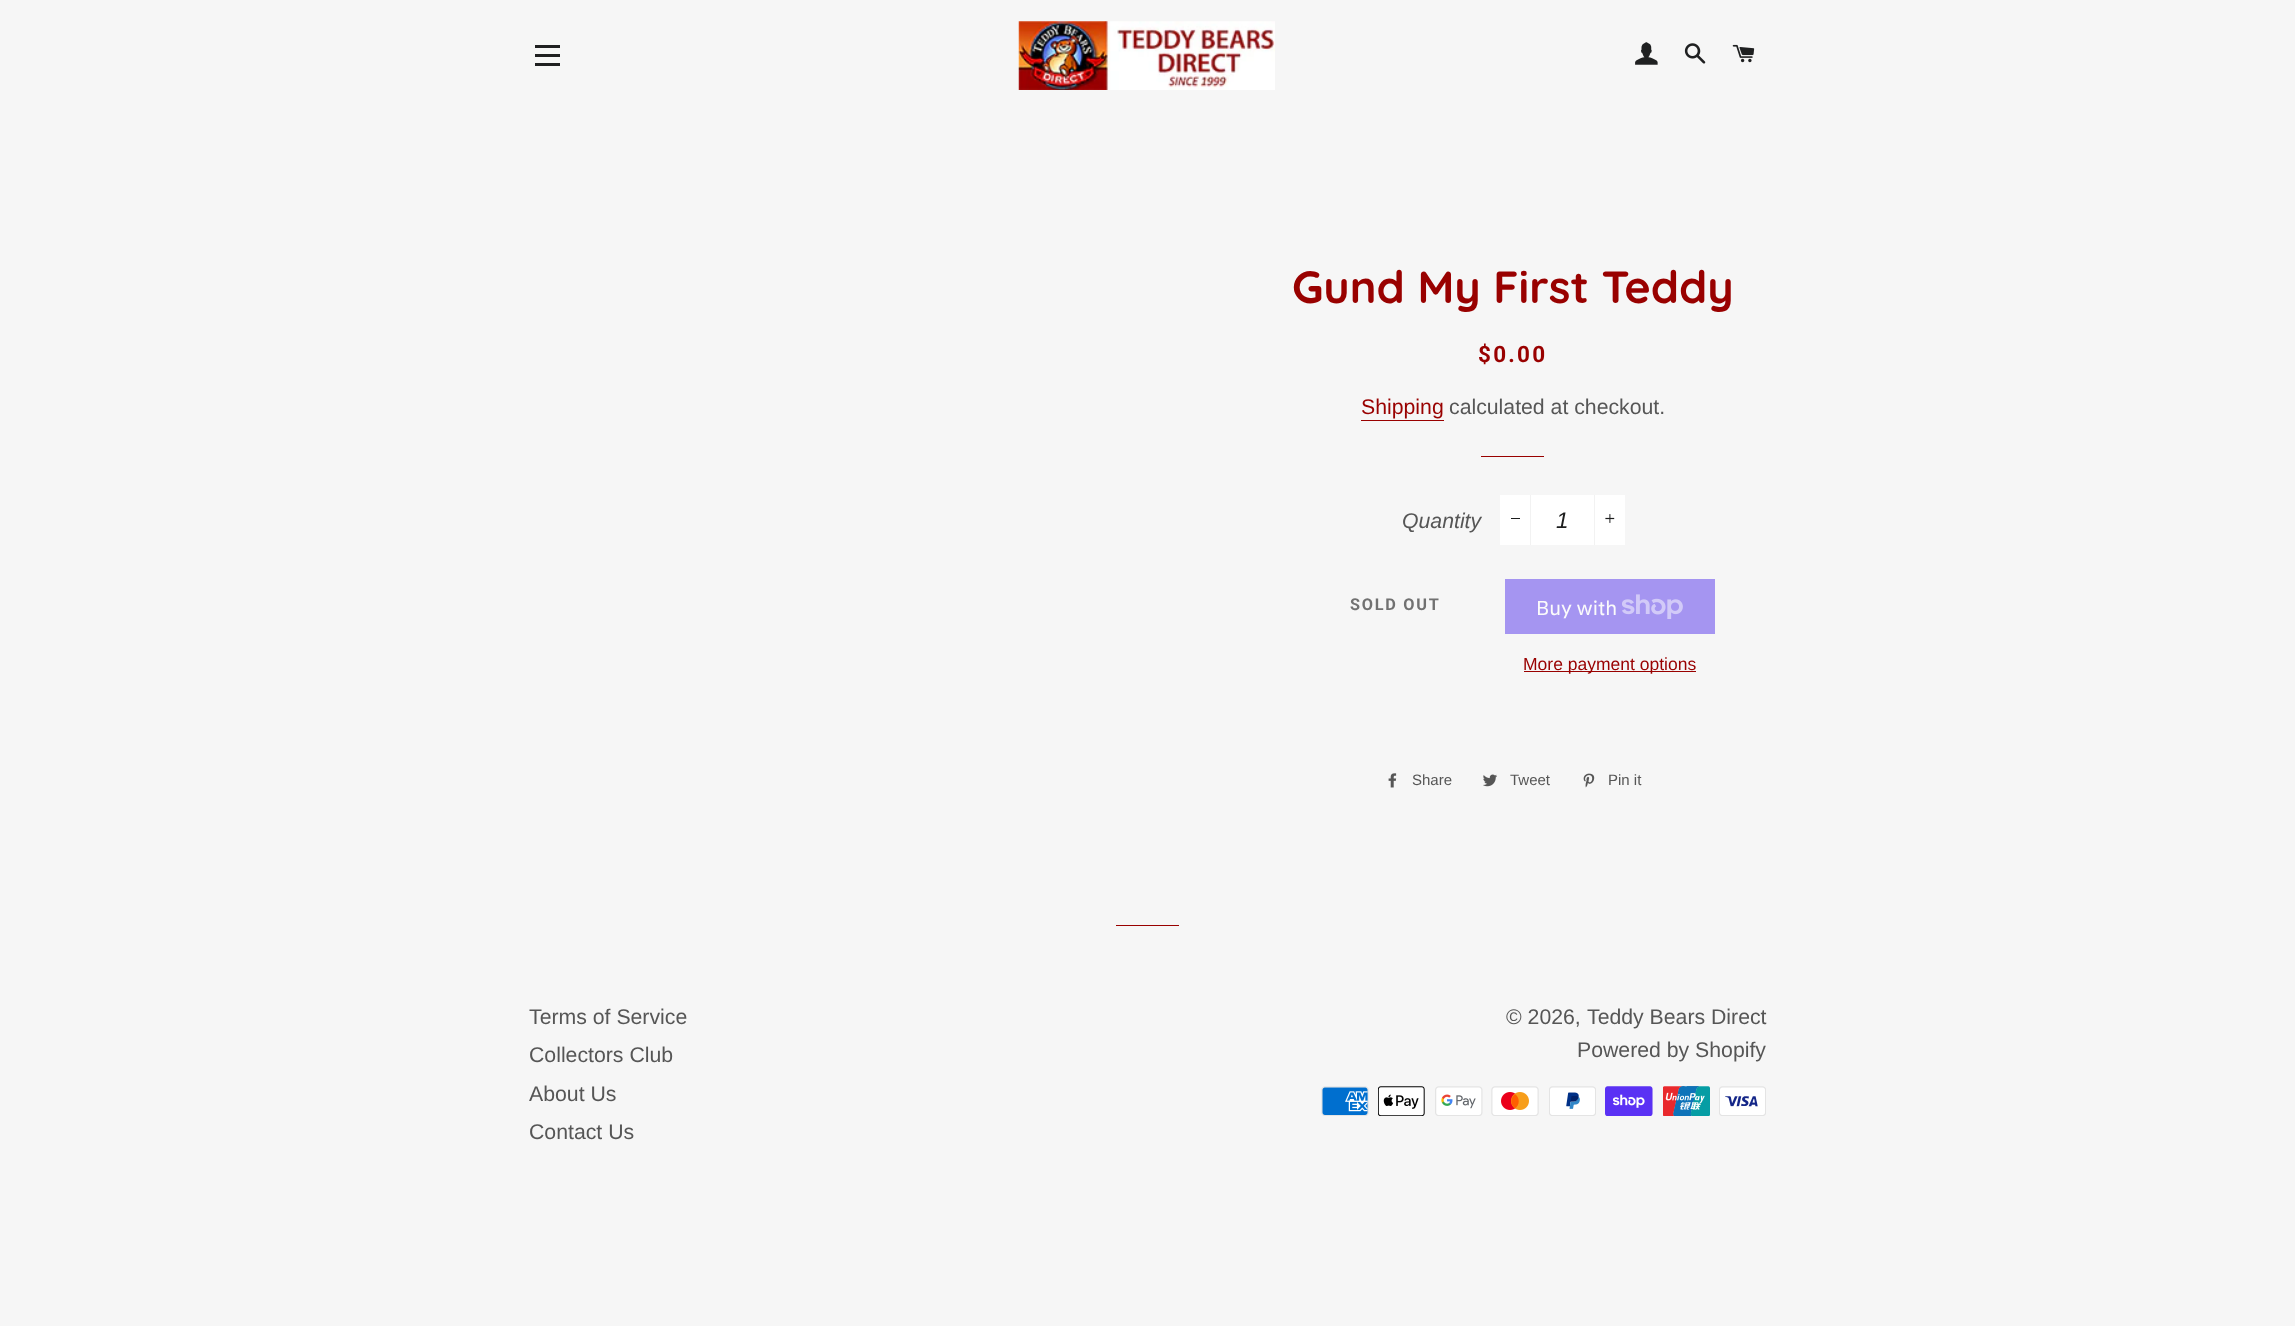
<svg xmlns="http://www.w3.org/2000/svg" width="2295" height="1326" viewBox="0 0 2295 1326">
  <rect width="100%" height="100%" fill="#f6f6f6"/>
  <path d="M535 45h25v3H535z" fill="#1f2021"/>
  <path d="M535 54h25v3H535z" fill="#1f2021"/>
  <path d="M535 63h25v3H535z" fill="#1f2021"/>
  <image x="1018" y="21" width="257" height="69" href="img/1.png"/>
  <image x="1635" y="42" width="23" height="23" href="img/2.png"/>
  <image x="1684" y="43" width="22" height="21" href="img/3.png"/>
  <image x="1732" y="44" width="23" height="19" href="img/4.png"/>
  <path d="M1361 420h83v1H1361z" fill="#990100"/>
  <path d="M1481 456h63v1H1481z" fill="#990100"/>
  <path d="M1500 495h125v50H1500z" fill="#fff"/>
  <path d="M1530 495h1v50H1530z" fill="#f2f2f2"/>
  <path d="M1511 518h9v1H1511z" fill="#1c1d1d"/>
  <path d="M1594 495h1v50H1594z" fill="#f2f2f2"/>
  <image x="1605" y="514" width="10" height="9" href="img/5.png"/>
  <path d="M1505 579h210v55H1505z" fill="#a595f1"/>
  <image x="1622" y="594" width="61" height="25" href="img/6.png"/>
  <path d="M1524 671h172v1H1524z" fill="#990100"/>
  <image x="1388" y="773" width="9" height="15" href="img/7.png"/>
  <image x="1483" y="774" width="14" height="13" href="img/8.png"/>
  <image x="1583" y="773" width="12" height="15" href="img/9.png"/>
  <path d="M1116 925h63v1H1116z" fill="#990100"/>
  <image x="1321" y="1086" width="48" height="30" href="img/10.png"/>
  <image x="1378" y="1086" width="47" height="30" href="img/11.png"/>
  <image x="1435" y="1086" width="48" height="30" href="img/12.png"/>
  <image x="1491" y="1086" width="48" height="30" href="img/13.png"/>
  <image x="1549" y="1086" width="47" height="30" href="img/14.png"/>
  <image x="1605" y="1086" width="48" height="30" href="img/15.png"/>
  <image x="1663" y="1086" width="47" height="30" href="img/16.png"/>
  <image x="1719" y="1086" width="47" height="30" href="img/17.png"/>
  <text x="1292" y="303" font-family="Quicksand" font-size="45" font-weight="bold" fill="#990100">Gund My First Teddy</text>
  <text x="1478" y="362" font-family="Roboto" font-size="22.5" font-weight="bold" letter-spacing="2.25" fill="#990100">$0.00</text>
  <text x="1361" y="414" font-family="Liberation Sans" font-size="21.25" fill="#990100">Shipping</text>
  <text x="1449" y="414" font-family="Liberation Sans" font-size="21.25" fill="#565656">calculated at checkout.</text>
  <text x="1402" y="528" font-family="Liberation Sans" font-size="21.25" font-style="italic" fill="#565656">Quantity</text>
  <text x="1556" y="528" font-family="Liberation Sans" font-size="22.5" font-style="italic" fill="#1c1d1d">1</text>
  <text x="1350" y="610" font-family="Roboto" font-size="16.25" font-weight="bold" letter-spacing="1.75" fill="#717171">SOLD OUT</text>
  <text x="1536" y="615" font-family="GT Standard" font-size="20" fill="#fbfbfb">Buy with</text>
  <text x="1523" y="670" font-family="Liberation Sans" font-size="17.5" fill="#990100">More payment options</text>
  <g font-family="Liberation Sans" font-size="15" fill="#565656">
    <text x="1412" y="785">Share</text>
    <text x="1510" y="785">Tweet</text>
    <text x="1608" y="785">Pin it</text>
  </g>
  <g font-family="Liberation Sans" font-size="21.25" fill="#565656">
    <text x="529" y="1024">Terms of Service</text>
    <text x="529" y="1062">Collectors Club</text>
    <text x="529" y="1101">About Us</text>
    <text x="529" y="1139">Contact Us</text>
    <text x="1506" y="1024">© 2026,</text>
    <text x="1587" y="1024">Teddy Bears Direct</text>
    <text x="1577" y="1057">Powered by Shopify</text>
  </g>
</svg>
